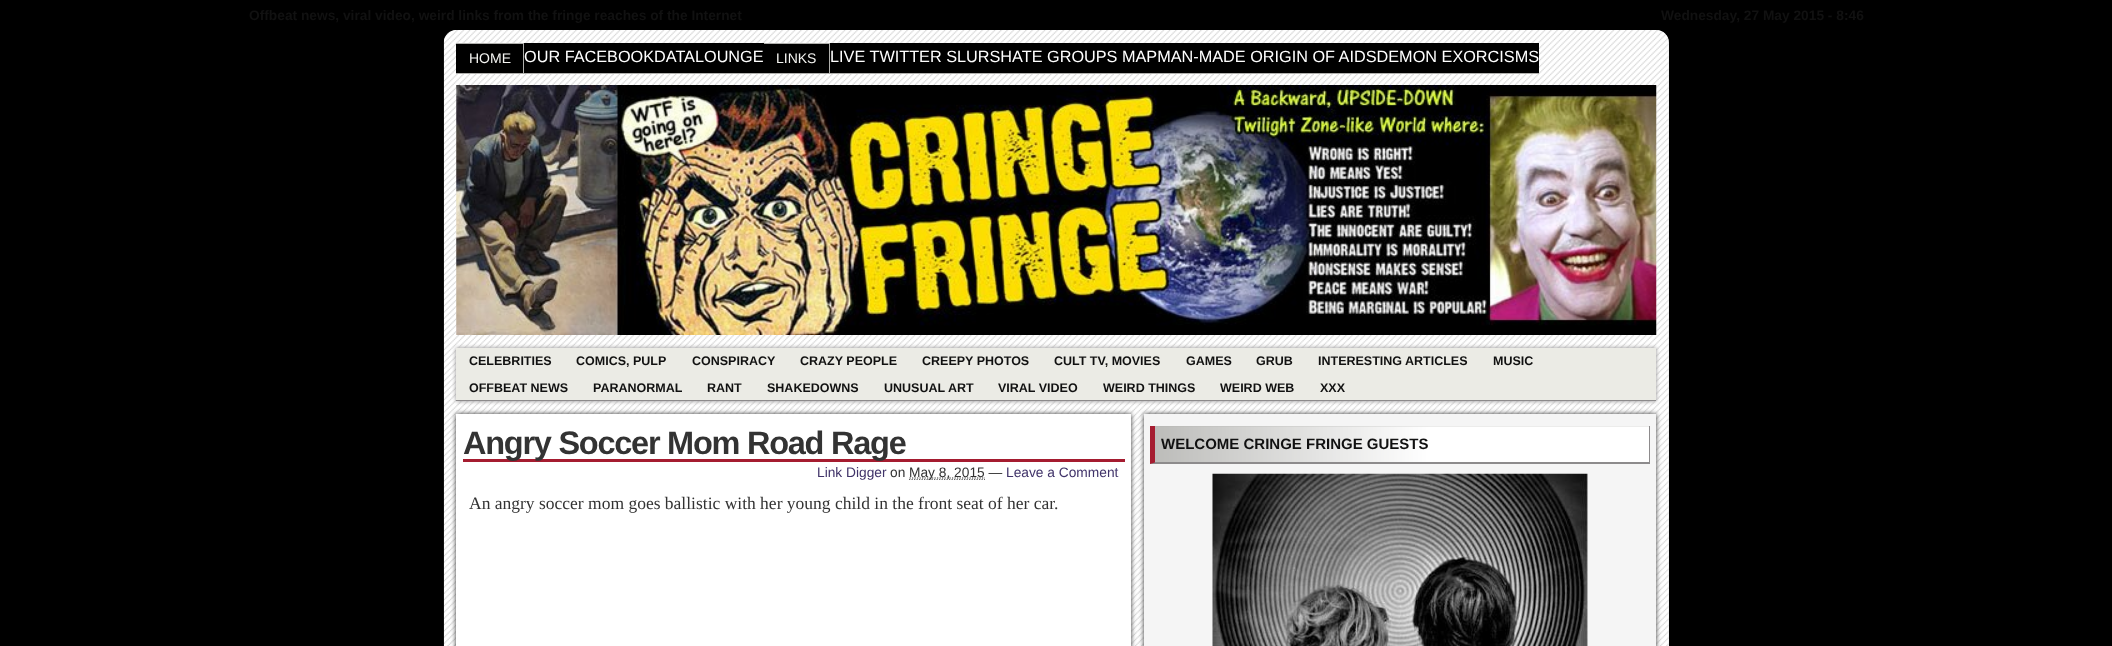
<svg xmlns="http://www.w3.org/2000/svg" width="2112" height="646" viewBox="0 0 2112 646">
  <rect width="100%" height="100%" fill="#000"/>
  <rect x="444" y="30" width="1225" height="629" rx="13" fill="#ebebeb"/>
  <image x="443" y="30" width="1226" height="616" href="img/1.png"/>
  <path d="M456 73h1083v1H456z" fill="#b0b0ad"/>
  <path d="M456 44h67v29H456z" fill="#000"/>
  <path d="M456 43h68v1H456z" fill="#b0b0ad"/>
  <path d="M523 43h1v31H523z" fill="#b0b0ad"/>
  <path d="M524 43h240v30H524z" fill="#000"/>
  <path d="M764 44h65v29H764z" fill="#000"/>
  <path d="M764 43h66v1H764z" fill="#b0b0ad"/>
  <path d="M829 43h1v31H829z" fill="#b0b0ad"/>
  <path d="M830 43h709v30H830z" fill="#000"/>
  <image x="456" y="85" width="1201" height="250" href="img/2.png"/>
  <path d="M456 348h1200v53H456z" fill="#8d8b8c" filter="blur(2px)"/>
  <path d="M456 348h1200v52H456z" fill="#ebebe5"/>
  <path d="M456 400h1200v1H456z" fill="#8d8b8c"/>
  <path d="M456 414h675v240H456z" fill="#333" filter="blur(2.5px)"/>
  <path d="M456 414h675v232H456z" fill="#fff"/>
  <path d="M463 459h662v3H463z" fill="#a51c30"/>
  <path d="M909 479.5H985" fill="none" stroke="#666" stroke-width="1.2" stroke-dasharray="1.25 1.25"/>
  <path d="M909.5 478H985" fill="none" stroke="#333" stroke-width="1.2" stroke-dasharray="1.25 1.25"/>
  <path d="M1144 414h512v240H1144z" fill="#333" filter="blur(2.5px)"/>
  <path d="M1144 414h512v232H1144z" fill="#f5f5f5"/>
  <path d="M1150 426h499v38H1150z" fill="#b0b0ad"/>
  <image x="1155" y="426" width="494" height="36" href="img/3.png"/>
  <path d="M1649 426h1v38H1649z" fill="#8d8b8c"/>
  <path d="M1650 464H1150L1155 462H1649Z" fill="#8d8b8c"/>
  <path d="M1150 464V426H1155V462.5Z" fill="#a51c30"/>
  <image x="1212" y="473" width="376" height="173" href="img/4.png"/>
  <g font-family="Liberation Sans" font-size="13.75" font-weight="bold" fill="#111">
    <text x="249" y="20">Offbeat news, viral video, weird links from the fringe reaches of the Internet</text>
    <text x="1661" y="20">Wednesday, 27 May 2015 - 8:46</text>
  </g>
  <text x="469" y="63" font-family="Liberation Sans" font-size="14" fill="#f5f5f2">HOME</text>
  <text x="524" y="62" font-family="Liberation Sans" font-size="16.25" fill="#fff">OUR FACEBOOKDATALOUNGE</text>
  <text x="776" y="63" font-family="Liberation Sans" font-size="14" fill="#f5f5f2">LINKS</text>
  <text x="830" y="62" font-family="Liberation Sans" font-size="16.25" fill="#fff">LIVE TWITTER SLURSHATE GROUPS MAPMAN-MADE ORIGIN OF AIDSDEMON EXORCISMS</text>
  <g font-family="Liberation Sans" font-size="12.5" font-weight="bold" fill="#111">
    <text x="469" y="365">CELEBRITIES</text>
    <text x="576" y="365">COMICS, PULP</text>
    <text x="692" y="365">CONSPIRACY</text>
    <text x="800" y="365">CRAZY PEOPLE</text>
    <text x="922" y="365">CREEPY PHOTOS</text>
    <text x="1054" y="365">CULT TV, MOVIES</text>
    <text x="1186" y="365">GAMES</text>
    <text x="1256" y="365">GRUB</text>
    <text x="1318" y="365">INTERESTING ARTICLES</text>
    <text x="1493" y="365">MUSIC</text>
    <text x="469" y="392">OFFBEAT NEWS</text>
    <text x="593" y="392">PARANORMAL</text>
    <text x="707" y="392">RANT</text>
    <text x="767" y="392">SHAKEDOWNS</text>
    <text x="884" y="392">UNUSUAL ART</text>
    <text x="998" y="392">VIRAL VIDEO</text>
    <text x="1103" y="392">WEIRD THINGS</text>
    <text x="1220" y="392">WEIRD WEB</text>
    <text x="1320" y="392">XXX</text>
  </g>
  <text x="463" y="454" font-family="Liberation Sans" font-size="32.5" font-weight="bold" letter-spacing="-1.25" fill="#333">Angry Soccer Mom Road Rage</text>
  <text x="817" y="477" font-family="Liberation Sans" font-size="13.75" fill="#403369">Link Digger</text>
  <g font-family="Liberation Sans" font-size="13.75" fill="#333">
    <text x="890" y="477">on</text>
    <text x="909" y="477">May 8, 2015 —</text>
  </g>
  <text x="1006" y="477" font-family="Liberation Sans" font-size="13.75" fill="#403369">Leave a Comment</text>
  <text x="469" y="509" font-family="Liberation Serif" font-size="17.5" fill="#333">An angry soccer mom goes ballistic with her young child in the front seat of her car.</text>
  <text x="1161" y="449" font-family="Liberation Sans" font-size="15" font-weight="bold" fill="#111">WELCOME CRINGE FRINGE GUESTS</text>
</svg>
